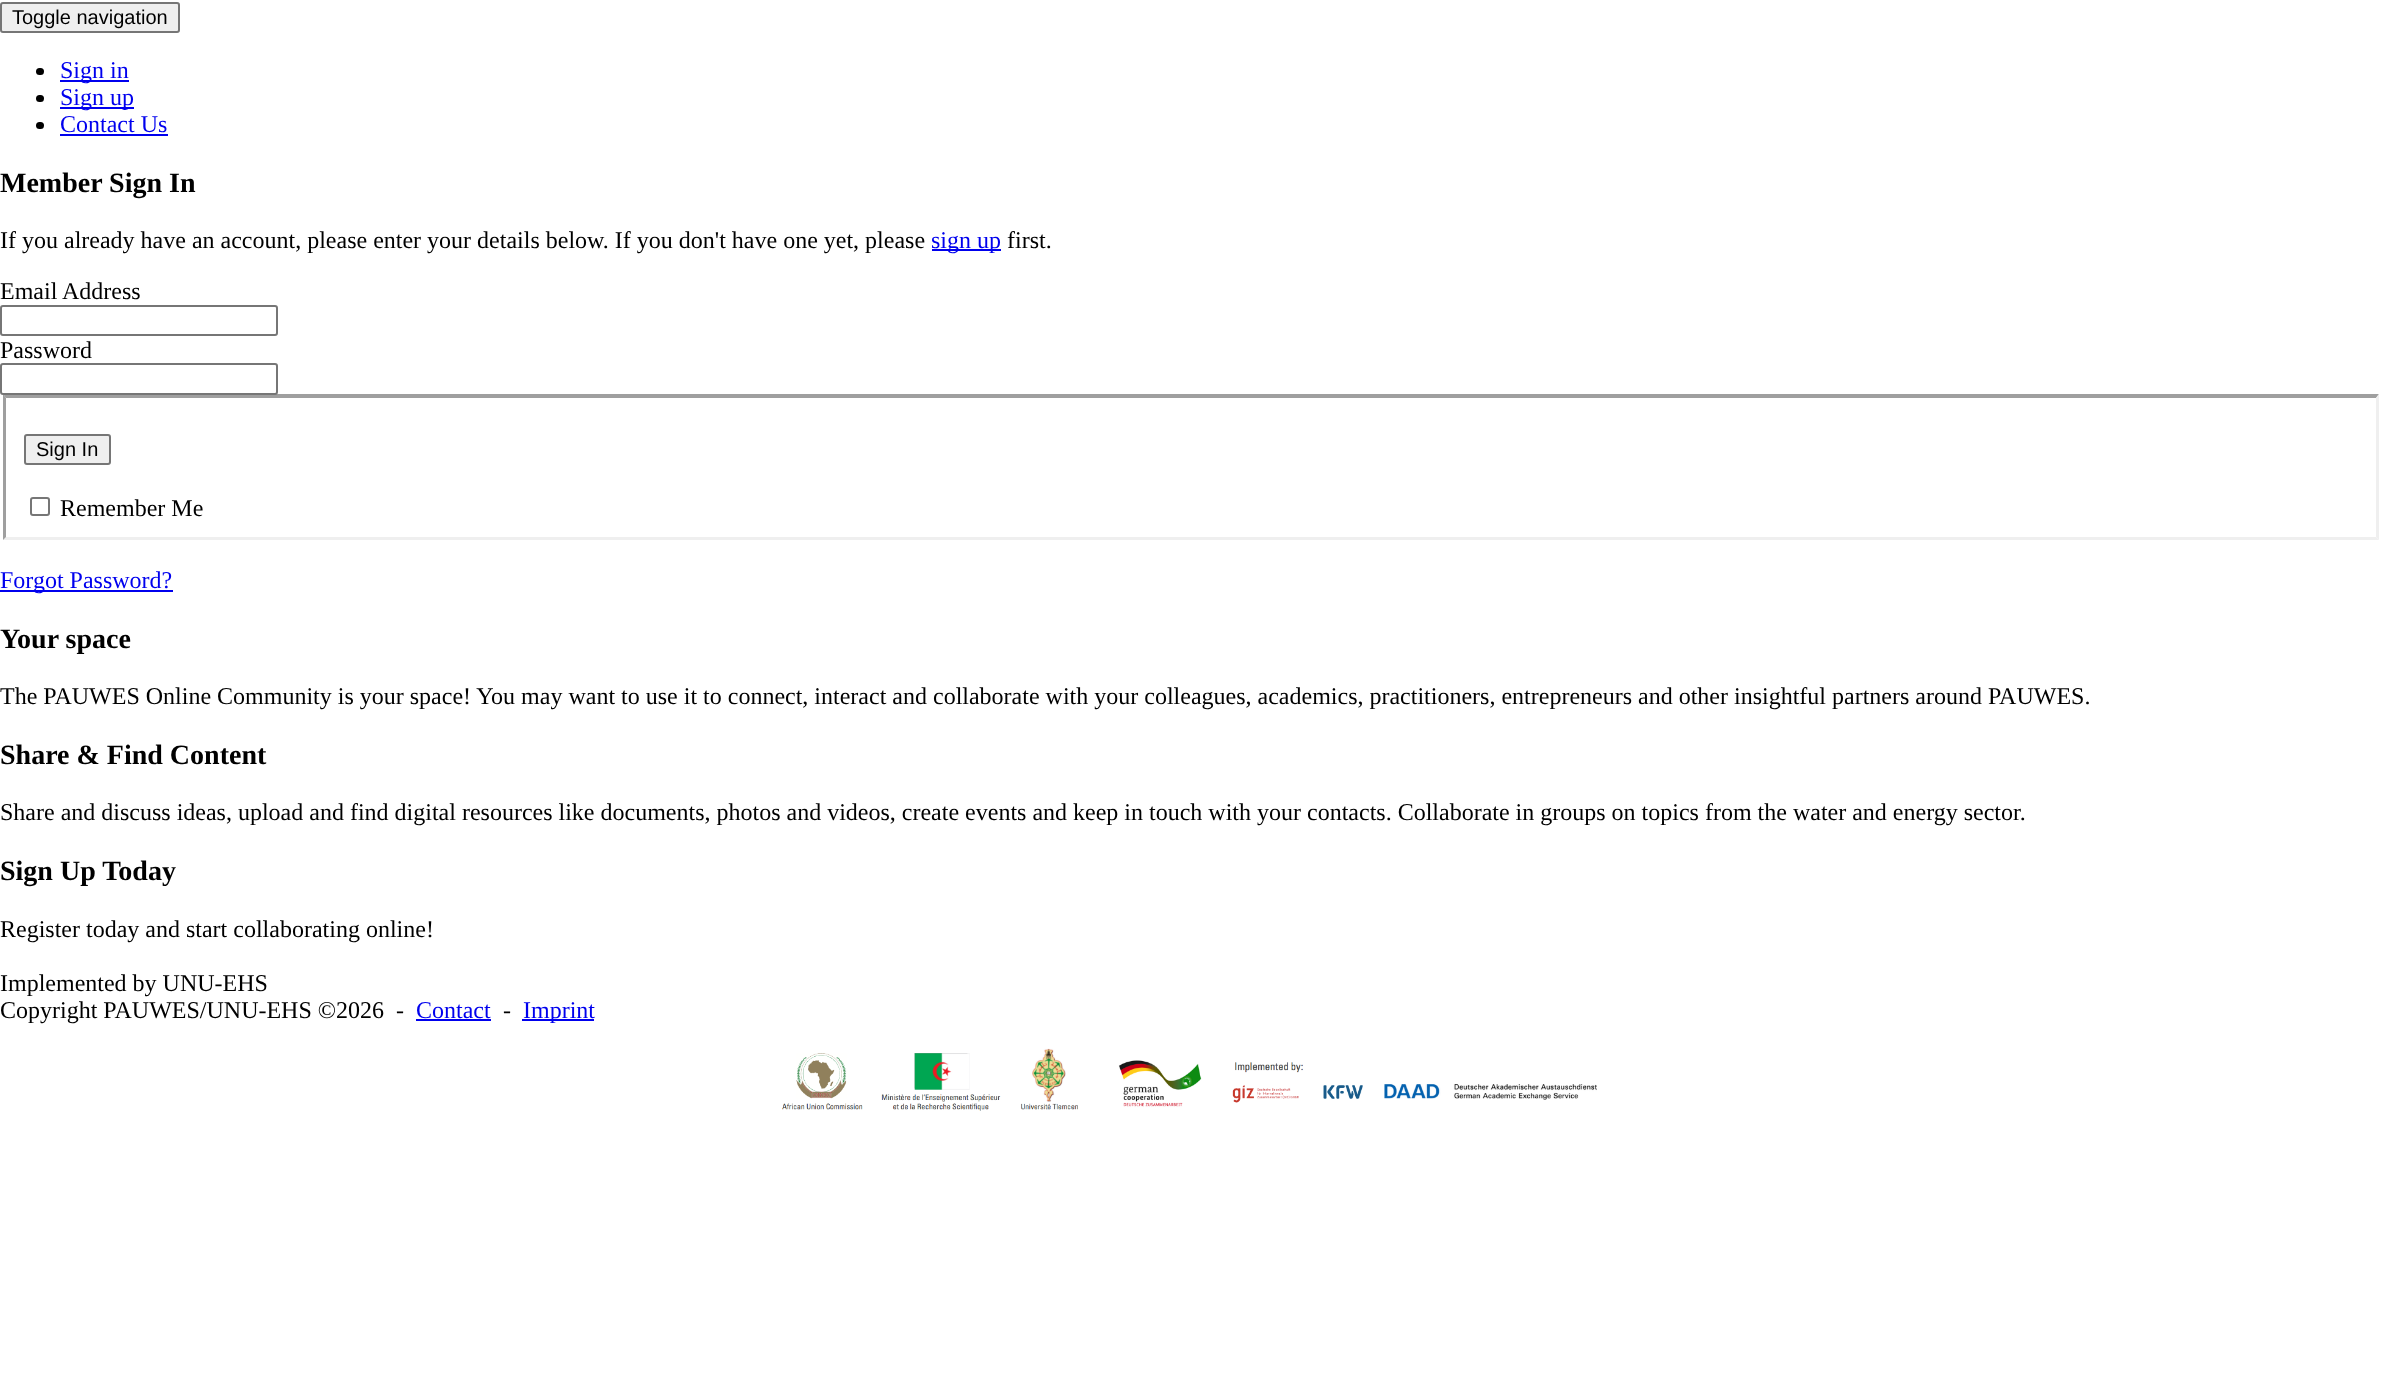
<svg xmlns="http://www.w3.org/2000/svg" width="2382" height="1376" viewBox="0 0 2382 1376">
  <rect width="100%" height="100%" fill="#fff"/>
  <rect x="1" y="3" width="178" height="29" rx="2" fill="#efefef" stroke="#767676" stroke-width="2"/>
  <rect x="36" y="68" width="8" height="7" rx="3.5" fill="#000"/>
  <path d="M60 80h69v2H60z" fill="#00e"/>
  <rect x="36" y="95" width="8" height="7" rx="3.5" fill="#000"/>
  <path d="M60 107h74v2H60z" fill="#00e"/>
  <rect x="36" y="122" width="8" height="7" rx="3.5" fill="#000"/>
  <path d="M60 134h108v2H60z" fill="#00e"/>
  <path d="M932 249h69v2H932z" fill="#00e"/>
  <rect x="1" y="306" width="276" height="29" rx="2" fill="none" stroke="#767676" stroke-width="2"/>
  <path d="M3 394H2379L2376 398H6Z" fill="#9f9f9f"/>
  <path d="M2379 394V540L2376 537V398Z" fill="#efefef"/>
  <path d="M2379 540H3L6 537H2376Z" fill="#efefef"/>
  <path d="M3 540V394L6 398V537Z" fill="#9f9f9f"/>
  <rect x="1" y="364" width="276" height="30" rx="2" fill="#fff" stroke="#767676" stroke-width="2"/>
  <rect x="25" y="435" width="85" height="29" rx="2" fill="#efefef" stroke="#767676" stroke-width="2"/>
  <rect x="31" y="498" width="18" height="17" rx="2" fill="none" stroke="#767676" stroke-width="2"/>
  <path d="M0 590h173v2H0z" fill="#00e"/>
  <path d="M416 1019h75v2H416z" fill="#00e"/>
  <path d="M522 1019h72v2H522z" fill="#00e"/>
  <image x="782" y="1048" width="815" height="63" href="img/1.png"/>
  <text x="12" y="24" font-family="Liberation Sans" font-size="20" fill="#000">Toggle navigation</text>
  <g font-family="Liberation Serif" font-size="24" fill="#00e">
    <text x="60" y="78">Sign in</text>
    <text x="60" y="105">Sign up</text>
    <text x="60" y="132">Contact Us</text>
  </g>
  <text x="0" y="192" font-family="Liberation Serif" font-size="28" font-weight="bold" fill="#000">Member Sign In</text>
  <text x="0" y="248" font-family="Liberation Serif" font-size="24" fill="#000">If you already have an account, please enter your details below. If you don't have one yet, please</text>
  <text x="931" y="248" font-family="Liberation Serif" font-size="24" fill="#00e">sign up</text>
  <g font-family="Liberation Serif" font-size="24" fill="#000">
    <text x="1007" y="248">first.</text>
    <text x="0" y="299">Email Address</text>
    <text x="0" y="358">Password</text>
  </g>
  <text x="36" y="456" font-family="Liberation Sans" font-size="20" fill="#000">Sign In</text>
  <text x="60" y="516" font-family="Liberation Serif" font-size="24" fill="#000">Remember Me</text>
  <text x="0" y="588" font-family="Liberation Serif" font-size="24" fill="#00e">Forgot Password?</text>
  <text x="0" y="648" font-family="Liberation Serif" font-size="28" font-weight="bold" fill="#000">Your space</text>
  <text x="0" y="704" font-family="Liberation Serif" font-size="24" fill="#000">The PAUWES Online Community is your space! You may want to use it to connect, interact and collaborate with your colleagues, academics, practitioners, entrepreneurs and other insightful partners around PAUWES.</text>
  <text x="0" y="764" font-family="Liberation Serif" font-size="28" font-weight="bold" fill="#000">Share &amp; Find Content</text>
  <text x="0" y="820" font-family="Liberation Serif" font-size="24" fill="#000">Share and discuss ideas, upload and find digital resources like documents, photos and videos, create events and keep in touch with your contacts. Collaborate in groups on topics from the water and energy sector.</text>
  <text x="0" y="880" font-family="Liberation Serif" font-size="28" font-weight="bold" fill="#000">Sign Up Today</text>
  <g font-family="Liberation Serif" font-size="24" fill="#000">
    <text x="0" y="937">Register today and start collaborating online!</text>
    <text x="0" y="991">Implemented by UNU-EHS</text>
    <text x="0" y="1018">Copyright PAUWES/UNU-EHS ©2026</text>
    <text x="396" y="1018">-</text>
  </g>
  <text x="416" y="1018" font-family="Liberation Serif" font-size="24" fill="#00e">Contact</text>
  <text x="503" y="1018" font-family="Liberation Serif" font-size="24" fill="#000">-</text>
  <text x="523" y="1018" font-family="Liberation Serif" font-size="24" fill="#00e">Imprint</text>
</svg>
